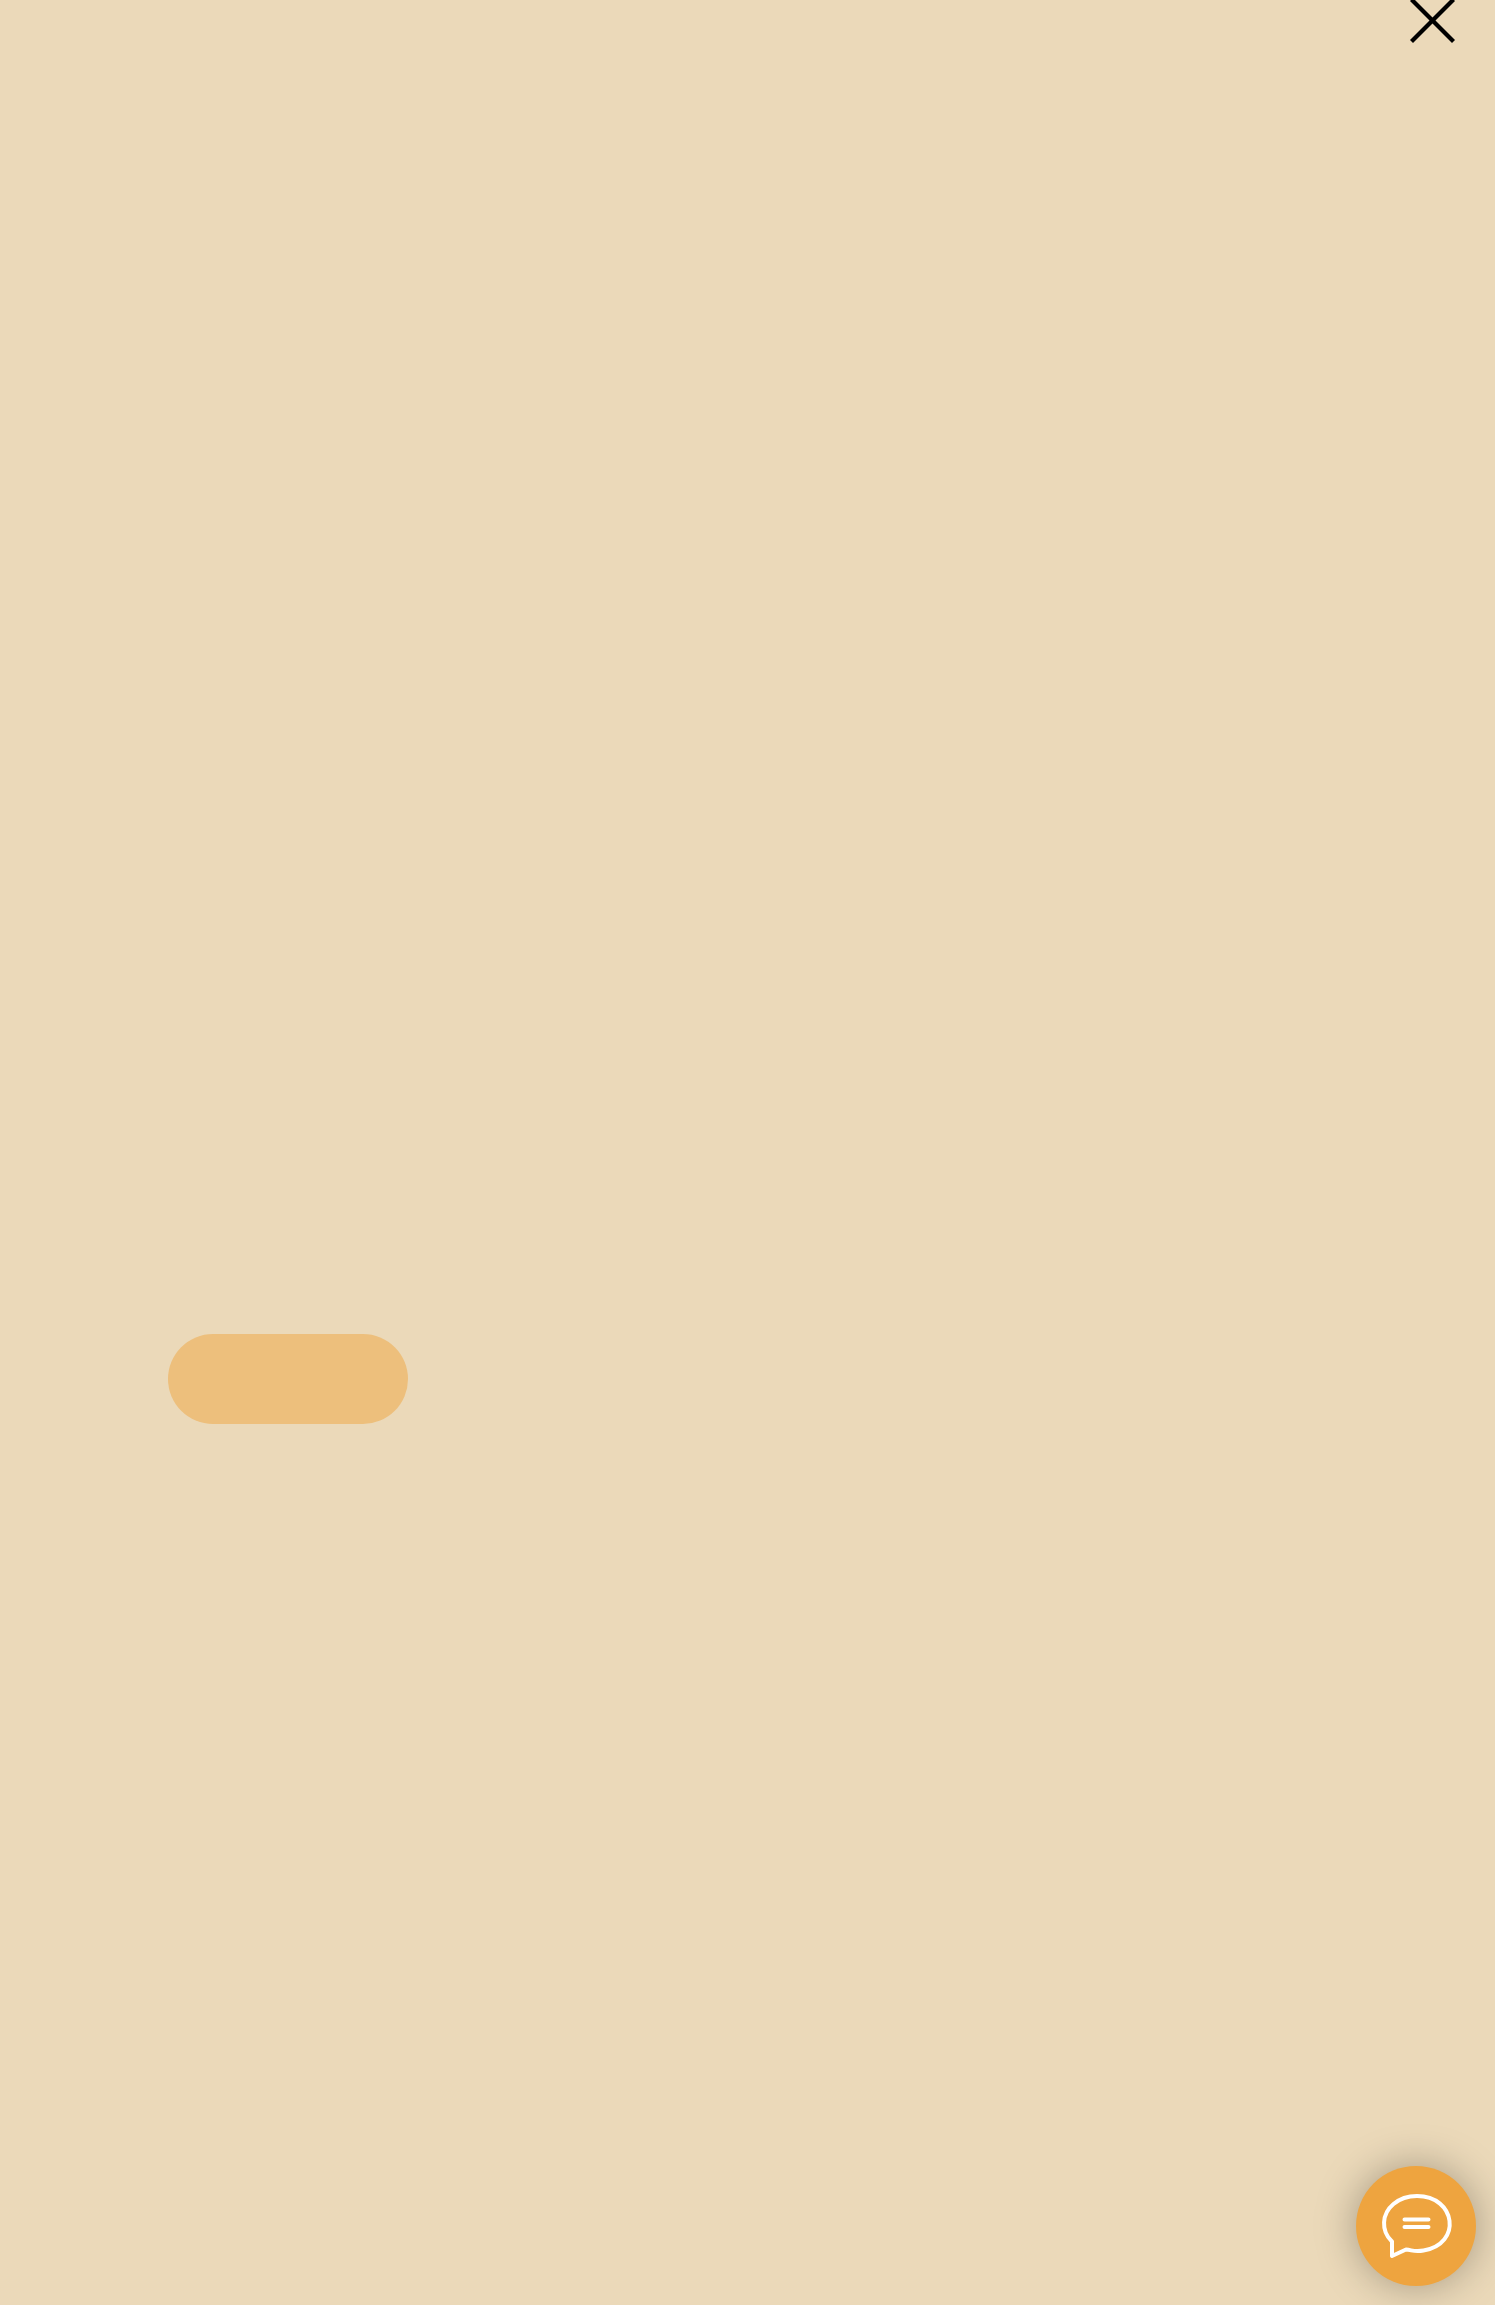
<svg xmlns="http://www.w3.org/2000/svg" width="1495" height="2305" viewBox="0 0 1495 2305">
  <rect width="100%" height="100%" fill="#ebd9b9"/>
  <path d="M1410 1L1413-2L1455 40L1452 43Z" fill="#000" fill-rule="evenodd"/>
  <path d="M1452-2L1455 1L1413 43L1410 40Z" fill="#000" fill-rule="evenodd"/>
  <rect x="168" y="1334" width="240" height="90" rx="45" fill="#edbf7c"/>
  <rect x="1356" y="2166" width="120" height="120" rx="60" fill="#0000004d" filter="blur(20px)"/>
  <circle cx="1416" cy="2226" r="60" fill="#eea43f"/>
  <path d="M1404.5 2219.5H1428.5M1404.5 2227H1428.5M1391.5 2241C1381 2230.5 1381.5 2214 1393.5 2204C1400 2198.5 1408.5 2196 1417 2196C1456 2196 1462.5 2244 1423.5 2250.5C1415 2252 1413.5 2250.5 1406 2249.5L1392 2256V2241.5Z" fill="none" stroke="#fff" stroke-width="4" stroke-linecap="round" stroke-linejoin="round"/>
</svg>
